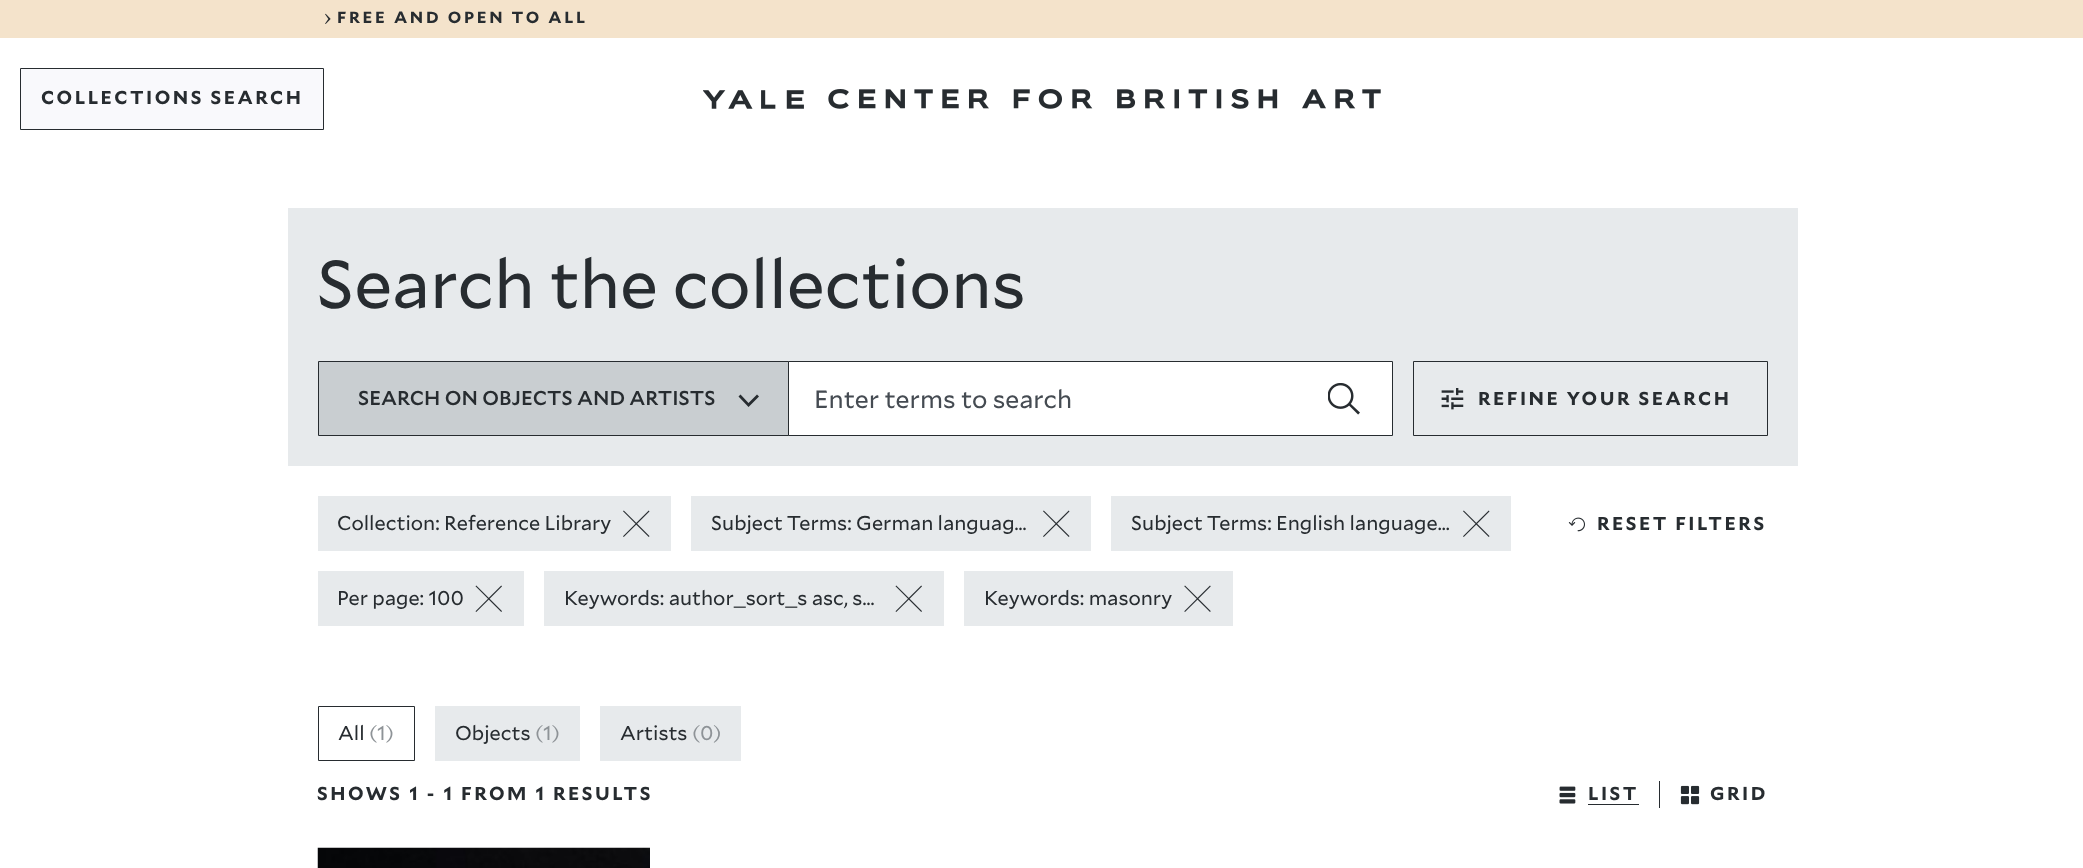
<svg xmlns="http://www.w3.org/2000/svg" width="2083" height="868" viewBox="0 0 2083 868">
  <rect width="100%" height="100%" fill="#fff"/>
  <path d="M0 0h2083v38H0z" fill="#f4e3cb"/>
  <image x="325" y="13" width="6" height="11" href="img/1.png"/>
  <path d="M20.5 68.5h303v61H20.5z" fill="#f9f9fc" stroke="#272c30"/>
  <image x="703" y="89" width="678" height="20" href="img/2.png"/>
  <path d="M288 208h1510v258H288z" fill="#e7eaec"/>
  <path d="M318.5 361.5h470v74H318.5z" fill="#c9ced1" stroke="#272c30"/>
  <path d="M748.5 407L738.5 396.5L740.5 394.5L748.5 403L757 394.5L759 396.5Z" fill="#272c30"/>
  <path d="M788.5 361.5h604v74H788.5z" fill="#fff" stroke="#272c30"/>
  <image x="1328" y="383" width="32" height="32" href="img/3.png"/>
  <path d="M1413.5 361.5h354v74H1413.5z" fill="none" stroke="#272c30"/>
  <image x="1441" y="388" width="23" height="22" href="img/4.png"/>
  <path d="M318 496h353v55H318z" fill="#e7eaec"/>
  <image x="623" y="510" width="27" height="27" href="img/5.png"/>
  <path d="M691 496h400v55H691z" fill="#e7eaec"/>
  <image x="1043" y="510" width="27" height="27" href="img/5.png"/>
  <path d="M1111 496h400v55H1111z" fill="#e7eaec"/>
  <image x="1463" y="510" width="27" height="27" href="img/5.png"/>
  <path d="M318 571h206v55H318z" fill="#e7eaec"/>
  <image x="475" y="585" width="27" height="27" href="img/6.png"/>
  <path d="M544 571h400v55H544z" fill="#e7eaec"/>
  <image x="895" y="585" width="27" height="27" href="img/6.png"/>
  <path d="M964 571h269v55H964z" fill="#e7eaec"/>
  <image x="1184" y="585" width="27" height="27" href="img/7.png"/>
  <image x="1568" y="517" width="17" height="15" href="img/8.png"/>
  <path d="M318.5 706.5h96v54H318.5z" fill="none" stroke="#272c30"/>
  <path d="M435 706h145v55H435z" fill="#e7eaec"/>
  <path d="M600 706h141v55H600z" fill="#e7eaec"/>
  <image x="1559" y="786" width="17" height="18" href="img/9.png"/>
  <path d="M1588 804h51v1H1588z" fill="#272c30"/>
  <path d="M1659 781h1v27H1659z" fill="#272c30"/>
  <image x="1680" y="785" width="20" height="20" href="img/10.png"/>
  <image x="317" y="847" width="333" height="21" href="img/11.png"/>
  <text x="337" y="23" font-family="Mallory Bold" font-size="16.25" font-weight="bold" letter-spacing="2.75" fill="#272c30">FREE AND OPEN TO ALL</text>
  <text x="41" y="104" font-family="Mallory Bold" font-size="18.75" font-weight="bold" letter-spacing="2.5" fill="#272c30">COLLECTIONS SEARCH</text>
  <text x="317" y="308" font-family="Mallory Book" font-size="67.5" fill="#272c30">Search the collections</text>
  <text x="358" y="405" font-family="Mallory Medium" font-size="20" font-weight="500" fill="#272c30">SEARCH ON OBJECTS AND ARTISTS</text>
  <text x="814" y="408" font-family="Mallory Book" font-size="25" fill="#454b52">Enter terms to search</text>
  <text x="1478" y="405" font-family="Mallory Bold" font-size="18.75" font-weight="bold" letter-spacing="2.5" fill="#272c30">REFINE YOUR SEARCH</text>
  <g font-family="Mallory Book" font-size="20" fill="#272c30">
    <text x="337" y="530">Collection: Reference Library</text>
    <text x="711" y="530">Subject Terms: German languag…</text>
    <text x="1131" y="530">Subject Terms: English language…</text>
    <text x="337" y="605">Per page: 100</text>
    <text x="564" y="605">Keywords: author_sort_s asc, s…</text>
    <text x="984" y="605">Keywords: masonry</text>
  </g>
  <text x="1597" y="530" font-family="Mallory Bold" font-size="18.75" font-weight="bold" letter-spacing="2.5" fill="#272c30">RESET FILTERS</text>
  <text x="338" y="740" font-family="Mallory Book" font-size="20" fill="#272c30">All</text>
  <text x="369" y="740" font-family="Mallory Book" font-size="20" fill="#8e9397">(1)</text>
  <text x="455" y="740" font-family="Mallory Book" font-size="20" fill="#272c30">Objects</text>
  <text x="535" y="740" font-family="Mallory Book" font-size="20" fill="#8e9397">(1)</text>
  <text x="620" y="740" font-family="Mallory Book" font-size="20" fill="#272c30">Artists</text>
  <text x="692" y="740" font-family="Mallory Book" font-size="20" fill="#8e9397">(0)</text>
  <g font-family="Mallory Bold" font-size="18.75" font-weight="bold" letter-spacing="2.5" fill="#272c30">
    <text x="317" y="800">SHOWS 1 - 1 FROM 1 RESULTS</text>
    <text x="1588" y="800">LIST</text>
    <text x="1710" y="800">GRID</text>
  </g>
</svg>
